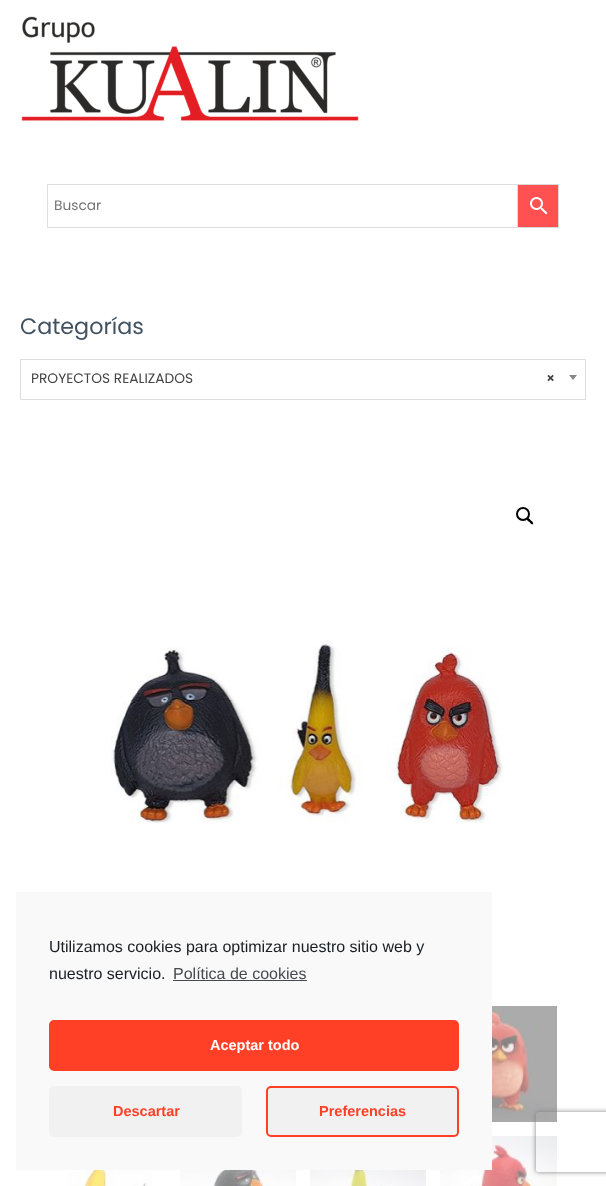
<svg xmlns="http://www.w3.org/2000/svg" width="606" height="1186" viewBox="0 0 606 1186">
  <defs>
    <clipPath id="clip1"><path d="M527 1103H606V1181H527ZM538 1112H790C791 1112 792 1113 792 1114V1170C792 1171 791 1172 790 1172H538C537 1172 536 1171 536 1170V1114C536 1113 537 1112 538 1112Z" clip-rule="evenodd"/></clipPath>
  </defs>
  <rect width="100%" height="100%" fill="#fff"/>
  <image x="21" y="16" width="338" height="105" href="img/1.png"/>
  <path d="M517.5 184.5h41v43H517.5z" fill="#ff5151" stroke="#d8d8d8"/>
  <path d="M47.5 184.5h470v43H47.5z" fill="none" stroke="#ddd"/>
  <image x="530" y="197" width="18" height="18" href="img/2.png"/>
  <path d="M20.5 359.5h565v40H20.5z" fill="none" stroke="#ddd"/>
  <path d="M569 375H577L573 380Z" fill="#888"/>
  <circle cx="523" cy="514" r="6" fill="none" stroke="#000" stroke-width="2"/>
  <path d="M527 518.5C528.5 517 530 520 531 520.5C531.5 521 534 523 533 524C531.5 525.5 530 522.5 529.5 522C528.5 521.5 526 519.5 527 518.5Z" fill="#000"/>
  <image x="110" y="641" width="393" height="182" href="img/3.png"/>
  <image x="492" y="1006" width="65" height="116" href="img/4.png"/>
  <image x="68" y="1170" width="84" height="16" href="img/5.png"/>
  <image x="180" y="1170" width="116" height="16" href="img/6.png"/>
  <image x="310" y="1170" width="116" height="16" href="img/7.png"/>
  <image x="440" y="1136" width="117" height="50" href="img/8.png"/>
  <path d="M16 892h476v278H16z" fill="#f9f9f9"/>
  <path d="M173 980h134v1H173z" fill="#464a4e"/>
  <rect x="50" y="1021" width="408" height="49" rx="4" fill="#ff3f26" stroke="#ff3f26" stroke-width="2"/>
  <rect x="49" y="1086" width="193" height="51" rx="5" fill="#f1f1f1"/>
  <rect x="267" y="1087" width="191" height="49" rx="4" fill="#f1f1f1" stroke="#ff3f26" stroke-width="2"/>
  <g clip-path="url(#clip1)">
    <rect x="536" y="1112" width="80" height="60" rx="2" fill="#808080" filter="blur(2.5px)"/>
  </g>
  <text x="54" y="210" font-family="Poppins" font-size="13.75" fill="#757575">Buscar</text>
  <text x="20" y="334" font-family="Poppins" font-size="22.25" fill="#415161">Categorías</text>
  <text x="31" y="383" font-family="Poppins" font-size="13.75" fill="#444">PROYECTOS REALIZADOS</text>
  <text x="546" y="383" font-family="Poppins" font-size="13.75" font-weight="600" fill="#444">×</text>
  <g font-family="Liberation Sans" font-size="16" fill="#191e23">
    <text x="49" y="952">Utilizamos cookies para optimizar nuestro sitio web y</text>
    <text x="49" y="979">nuestro servicio.</text>
  </g>
  <text x="173" y="979" font-family="Liberation Sans" font-size="16" fill="#464a4e">Política de cookies</text>
  <text x="210" y="1050" font-family="Liberation Sans" font-size="14.5" font-weight="bold" fill="#fff">Aceptar todo</text>
  <g font-family="Liberation Sans" font-size="14.5" font-weight="bold" fill="#ff3f26">
    <text x="113" y="1116">Descartar</text>
    <text x="319" y="1116">Preferencias</text>
  </g>
</svg>
